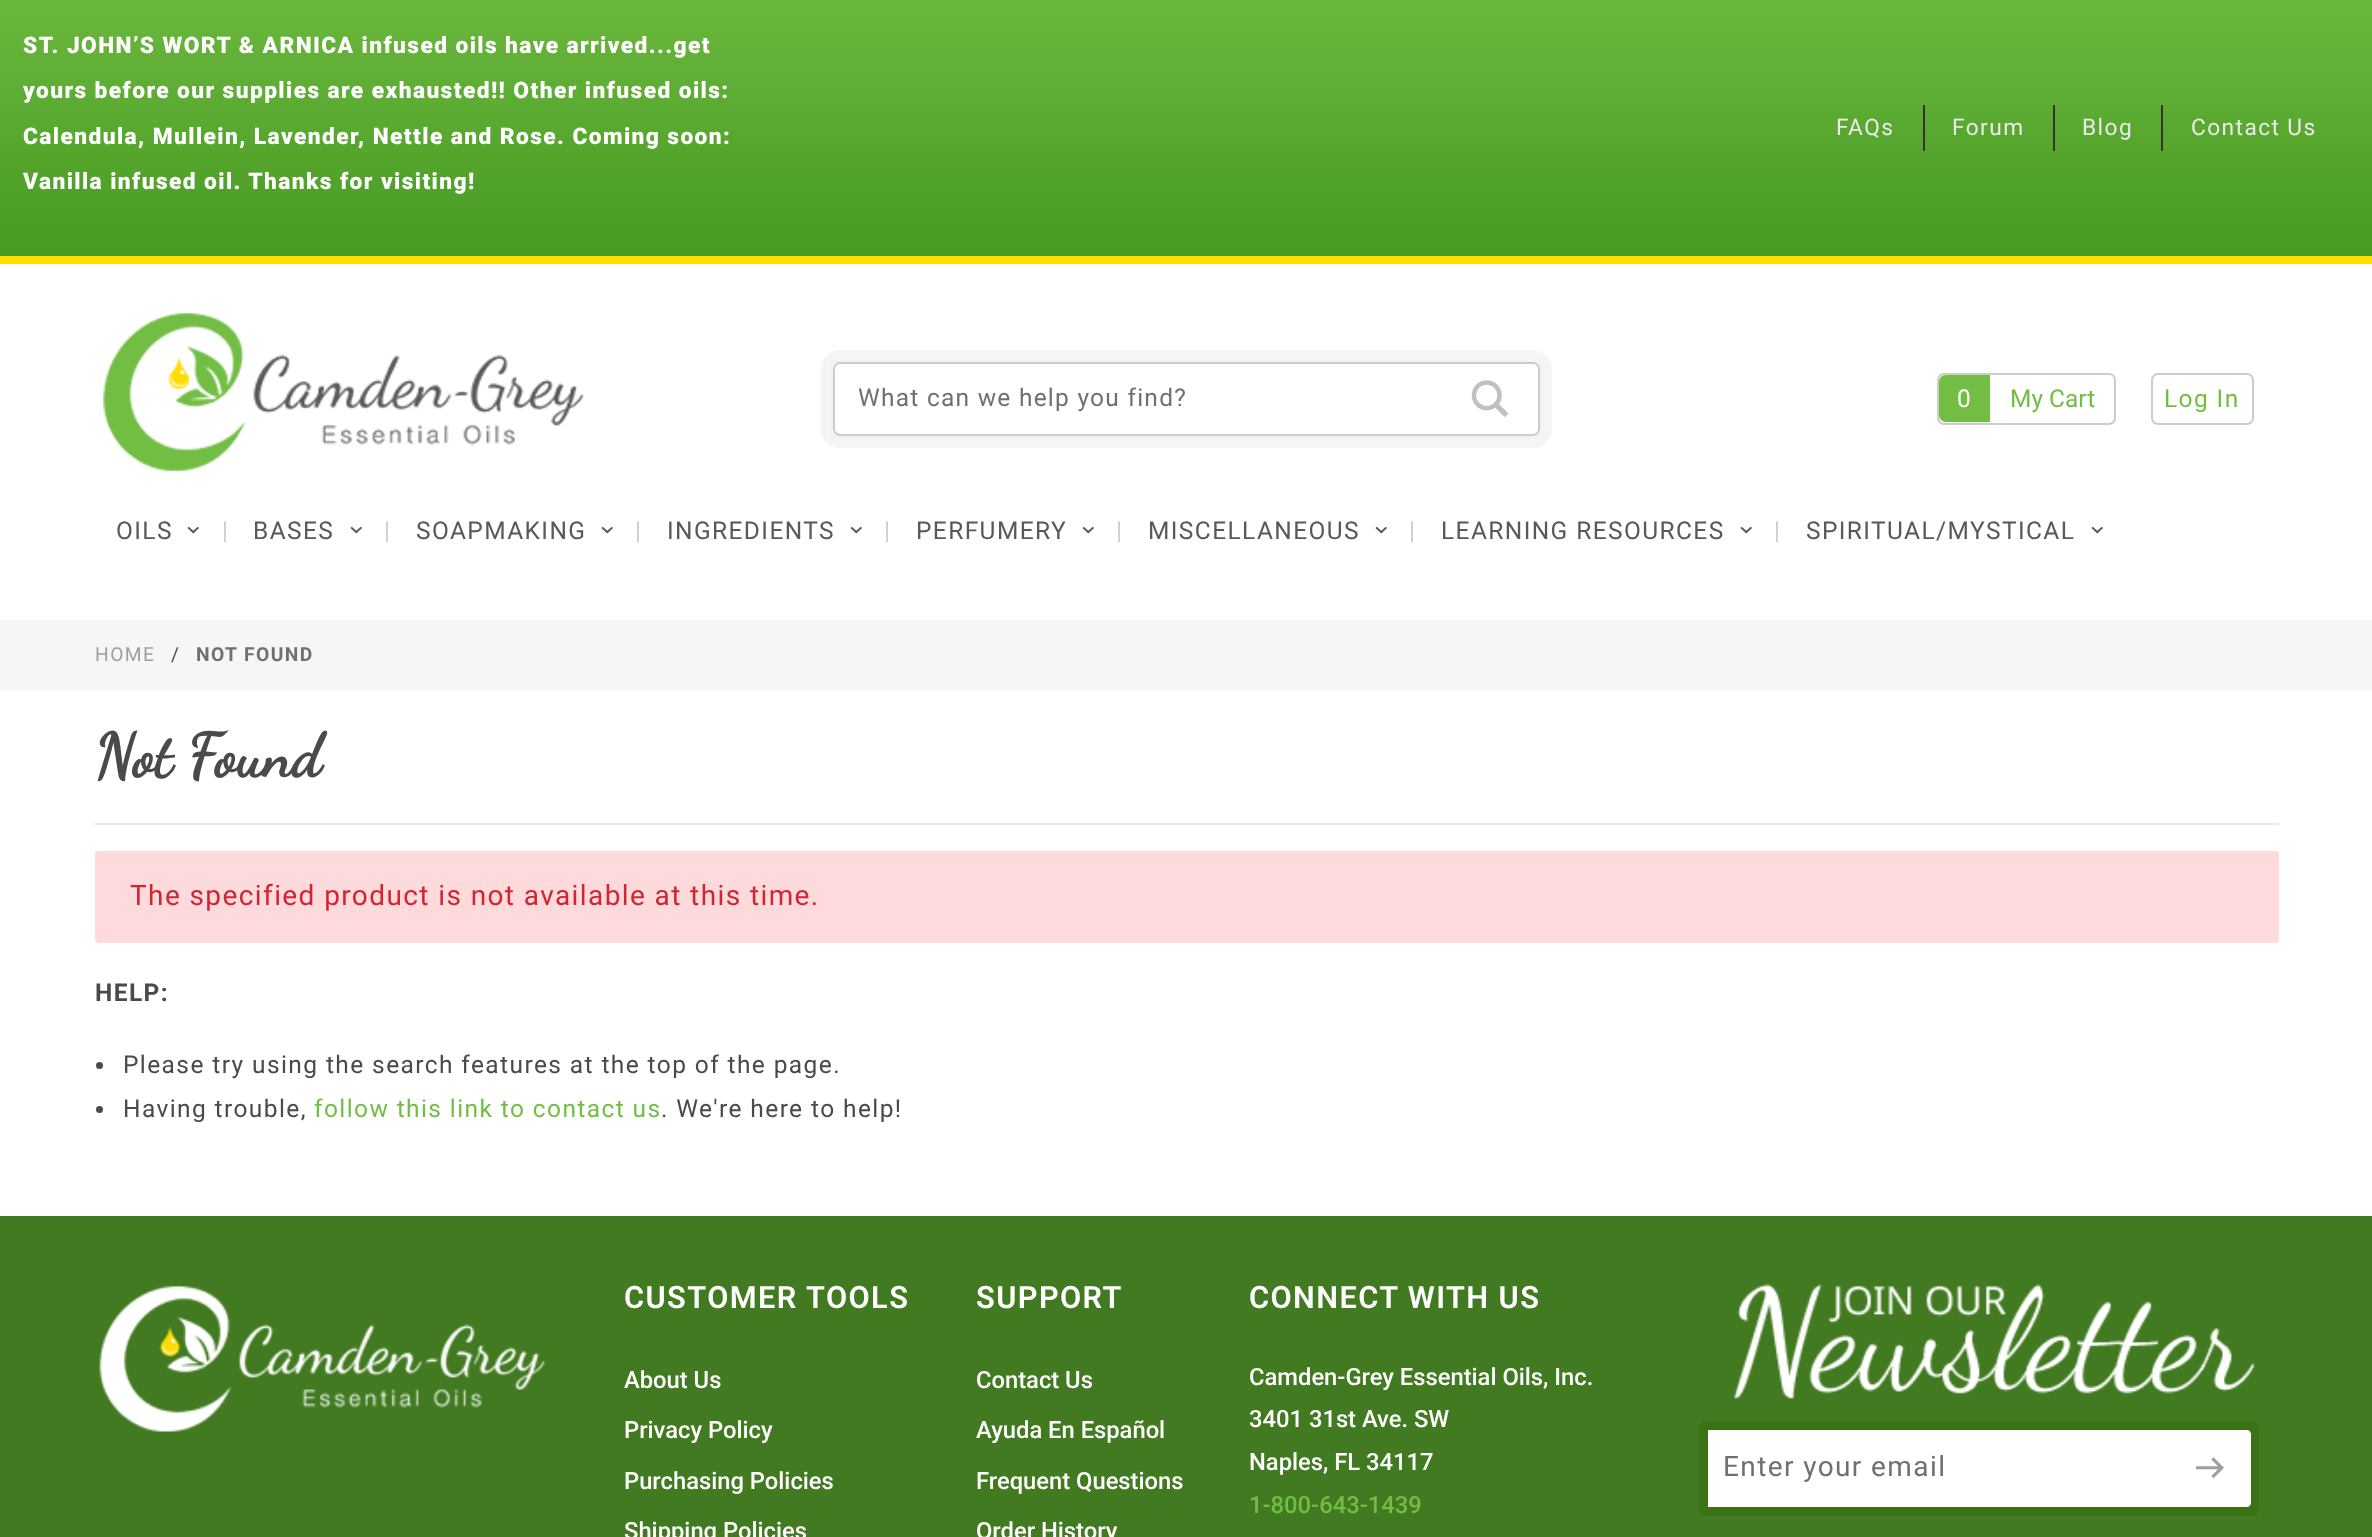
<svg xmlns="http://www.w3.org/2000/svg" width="2372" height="1537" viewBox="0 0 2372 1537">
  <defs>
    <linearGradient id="g1" gradientUnits="userSpaceOnUse" x1="1173" y1="0" x2="1173" y2="256"><stop offset="0" stop-color="#6ab73d"/><stop offset="1" stop-color="#489a23"/></linearGradient>
  </defs>
  <rect width="100%" height="100%" fill="#fff"/>
  <path d="M0 0h2372v256H0z" fill="url(#g1)"/>
  <path d="M0 256h2372v8H0z" fill="#fd0"/>
  <path d="M1923 105h2v46H1923z" fill="#333"/>
  <path d="M2053 105h2v46H2053z" fill="#333"/>
  <path d="M2161 105h2v46H2161z" fill="#333"/>
  <image x="102" y="312" width="482" height="160" href="img/1.png"/>
  <path d="M832 362h709v75H832z" fill="none" stroke="#eaeaea" stroke-width="2"/>
  <rect x="827" y="356" width="719" height="86" rx="13" fill="none" stroke="#f2f2f2cc" stroke-width="12"/>
  <rect x="834" y="363" width="705" height="72" rx="6" fill="none" stroke="#ccc" stroke-width="2"/>
  <image x="1471" y="380" width="38" height="37" href="img/2.png"/>
  <rect x="1938" y="374" width="177" height="50" rx="6" fill="none" stroke="#ccc" stroke-width="2"/>
  <path d="M1946 375H1990V422H1946C1942 422 1939 419 1939 415V382C1939 378 1942 375 1946 375Z" fill="#72be44"/>
  <rect x="2152" y="374" width="101" height="50" rx="6" fill="none" stroke="#ccc" stroke-width="2"/>
  <path d="M0 620h2372v71H0z" fill="#f6f6f6"/>
  <path d="M95 823h2184v2H95z" fill="#eaeaea"/>
  <rect x="95" y="851" width="2184" height="92" rx="4" fill="#fedadd"/>
  <circle cx="99.5" cy="1065.5" r="3.5" fill="#4a4a4a"/>
  <circle cx="99.5" cy="1109.5" r="3.5" fill="#4a4a4a"/>
  <path d="M0 1216h2372v321H0z" fill="#417a20"/>
  <image x="99" y="1285" width="446" height="147" href="img/3.png"/>
  <image x="1733" y="1284" width="522" height="115" href="img/4.png"/>
  <rect x="1703.5" y="1425.5" width="551" height="86" rx="2.5" fill="none" stroke="#3b7213" stroke-width="9"/>
  <path d="M1708 1430h462v77H1708z" fill="#fff"/>
  <path d="M2170 1430H2247C2249 1430 2251 1432 2251 1434V1503C2251 1505 2249 1507 2247 1507H2170Z" fill="#fff"/>
  <g font-family="Roboto" font-size="22.75" font-weight="900" letter-spacing="1.4" fill="#fff">
    <text x="23" y="53">ST. JOHN’S WORT &amp; ARNICA infused oils have arrived...get</text>
    <text x="23" y="98">yours before our supplies are exhausted!! Other infused oils:</text>
    <text x="23" y="144">Calendula, Mullein, Lavender, Nettle and Rose. Coming soon:</text>
    <text x="23" y="189">Vanilla infused oil. Thanks for visiting!</text>
  </g>
  <g font-family="Roboto" font-size="22.75" letter-spacing="1.4" fill="#eaeaea">
    <text x="1836" y="135">FAQs</text>
    <text x="1952" y="135">Forum</text>
    <text x="2082" y="135">Blog</text>
    <text x="2191" y="135">Contact Us</text>
  </g>
  <text x="858" y="406" font-family="Roboto" font-size="24.5" letter-spacing="1.25" fill="#707070">What can we help you find?</text>
  <text x="1957" y="407" font-family="Roboto" font-size="24.5" letter-spacing="1.4" fill="#fff">0</text>
  <text x="2010" y="407" font-family="Roboto" font-size="24.5" fill="#72be44">My Cart</text>
  <text x="2164" y="407" font-family="Roboto" font-size="24.5" letter-spacing="1.4" fill="#72be44">Log In</text>
  <text x="116" y="539" font-family="Roboto" font-size="24.5" letter-spacing="1.4" fill="#58595b">OILS</text>
  <text x="188" y="524" transform="rotate(90 188 524)" font-family="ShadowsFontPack" font-size="12" letter-spacing="1.4" fill="#58595b">3</text>
  <text x="222" y="539" font-family="Roboto" font-size="24.5" letter-spacing="1.4" fill="#ccc">|</text>
  <text x="253" y="539" font-family="Roboto" font-size="24.5" letter-spacing="1.4" fill="#58595b">BASES</text>
  <text x="351" y="524" transform="rotate(90 351 524)" font-family="ShadowsFontPack" font-size="12" letter-spacing="1.4" fill="#58595b">3</text>
  <text x="384" y="539" font-family="Roboto" font-size="24.5" letter-spacing="1.4" fill="#ccc">|</text>
  <text x="416" y="539" font-family="Roboto" font-size="24.5" letter-spacing="1.4" fill="#58595b">SOAPMAKING</text>
  <text x="602" y="524" transform="rotate(90 602 524)" font-family="ShadowsFontPack" font-size="12" letter-spacing="1.4" fill="#58595b">3</text>
  <text x="635" y="539" font-family="Roboto" font-size="24.5" letter-spacing="1.4" fill="#ccc">|</text>
  <text x="667" y="539" font-family="Roboto" font-size="24.5" letter-spacing="1.4" fill="#58595b">INGREDIENTS</text>
  <text x="851" y="524" transform="rotate(90 851 524)" font-family="ShadowsFontPack" font-size="12" letter-spacing="1.4" fill="#58595b">3</text>
  <text x="884" y="539" font-family="Roboto" font-size="24.5" letter-spacing="1.4" fill="#ccc">|</text>
  <text x="916" y="539" font-family="Roboto" font-size="24.5" letter-spacing="1.4" fill="#58595b">PERFUMERY</text>
  <text x="1083" y="524" transform="rotate(90 1083 524)" font-family="ShadowsFontPack" font-size="12" letter-spacing="1.4" fill="#58595b">3</text>
  <text x="1116" y="539" font-family="Roboto" font-size="24.5" letter-spacing="1.4" fill="#ccc">|</text>
  <text x="1148" y="539" font-family="Roboto" font-size="24.5" letter-spacing="1.4" fill="#58595b">MISCELLANEOUS</text>
  <text x="1376" y="524" transform="rotate(90 1376 524)" font-family="ShadowsFontPack" font-size="12" letter-spacing="1.4" fill="#58595b">3</text>
  <text x="1409" y="539" font-family="Roboto" font-size="24.5" letter-spacing="1.4" fill="#ccc">|</text>
  <text x="1441" y="539" font-family="Roboto" font-size="24.5" letter-spacing="1.4" fill="#58595b">LEARNING RESOURCES</text>
  <text x="1741" y="524" transform="rotate(90 1741 524)" font-family="ShadowsFontPack" font-size="12" letter-spacing="1.4" fill="#58595b">3</text>
  <text x="1774" y="539" font-family="Roboto" font-size="24.5" letter-spacing="1.4" fill="#ccc">|</text>
  <text x="1806" y="539" font-family="Roboto" font-size="24.5" letter-spacing="1.4" fill="#58595b">SPIRITUAL/MYSTICAL</text>
  <text x="2092" y="524" transform="rotate(90 2092 524)" font-family="ShadowsFontPack" font-size="12" letter-spacing="1.4" fill="#58595b">3</text>
  <text x="95" y="661" font-family="Roboto" font-size="19.25" letter-spacing="1.4" fill="#9f9f9f">HOME</text>
  <text x="171" y="661" font-family="Roboto" font-size="19.25" letter-spacing="1.4" fill="#4a4a4a">/</text>
  <text x="196" y="661" font-family="Roboto" font-size="19.25" font-weight="bold" letter-spacing="1.4" fill="#707070">NOT FOUND</text>
  <text x="95" y="776" font-family="Dancing Script" font-size="61" font-weight="bold" fill="#4a4a4a">Not Found</text>
  <text x="130" y="905" font-family="Roboto" font-size="28" letter-spacing="1.4" fill="#d12531">The specified product is not available at this time.</text>
  <text x="95" y="1001" font-family="Roboto" font-size="24.5" font-weight="bold" letter-spacing="1.4" fill="#4a4a4a">HELP:</text>
  <g font-family="Roboto" font-size="24.5" letter-spacing="1.4" fill="#4a4a4a">
    <text x="123" y="1073">Please try using the search features at the top of the page.</text>
    <text x="123" y="1117">Having trouble,</text>
  </g>
  <text x="314" y="1117" font-family="Roboto" font-size="24.5" letter-spacing="1.4" fill="#72be44">follow this link to contact us</text>
  <text x="661" y="1117" font-family="Roboto" font-size="24.5" letter-spacing="1.4" fill="#4a4a4a">. We're here to help!</text>
  <text x="624" y="1308" font-family="Roboto" font-size="30.75" font-weight="600" letter-spacing="1.4" fill="#fff">CUSTOMER TOOLS</text>
  <g font-family="Roboto" font-size="23.75" font-weight="500" fill="#fff">
    <text x="624" y="1388">About Us</text>
    <text x="624" y="1438">Privacy Policy</text>
    <text x="624" y="1489">Purchasing Policies</text>
    <text x="624" y="1539">Shipping Policies</text>
  </g>
  <text x="976" y="1308" font-family="Roboto" font-size="30.75" font-weight="600" letter-spacing="1.4" fill="#fff">SUPPORT</text>
  <g font-family="Roboto" font-size="23.75" font-weight="500" fill="#fff">
    <text x="976" y="1388">Contact Us</text>
    <text x="976" y="1438">Ayuda En Español</text>
    <text x="976" y="1489">Frequent Questions</text>
    <text x="976" y="1539">Order History</text>
  </g>
  <text x="1249" y="1308" font-family="Roboto" font-size="30.75" font-weight="600" letter-spacing="1.4" fill="#fff">CONNECT WITH US</text>
  <g font-family="Roboto" font-size="23.75" font-weight="500" fill="#fff">
    <text x="1249" y="1385">Camden-Grey Essential Oils, Inc.</text>
    <text x="1249" y="1427">3401 31st Ave. SW</text>
    <text x="1249" y="1470">Naples, FL 34117</text>
  </g>
  <text x="1249" y="1513" font-family="Roboto" font-size="23.75" font-weight="500" fill="#72be44">1-800-643-1439</text>
  <text x="1723" y="1476" font-family="Roboto" font-size="28" letter-spacing="1.4" fill="#707070">Enter your email</text>
  <text x="2196" y="1480" font-family="ShadowsFontPack" font-size="28" letter-spacing="1.4" fill="#9f9f9f">;</text>
</svg>
